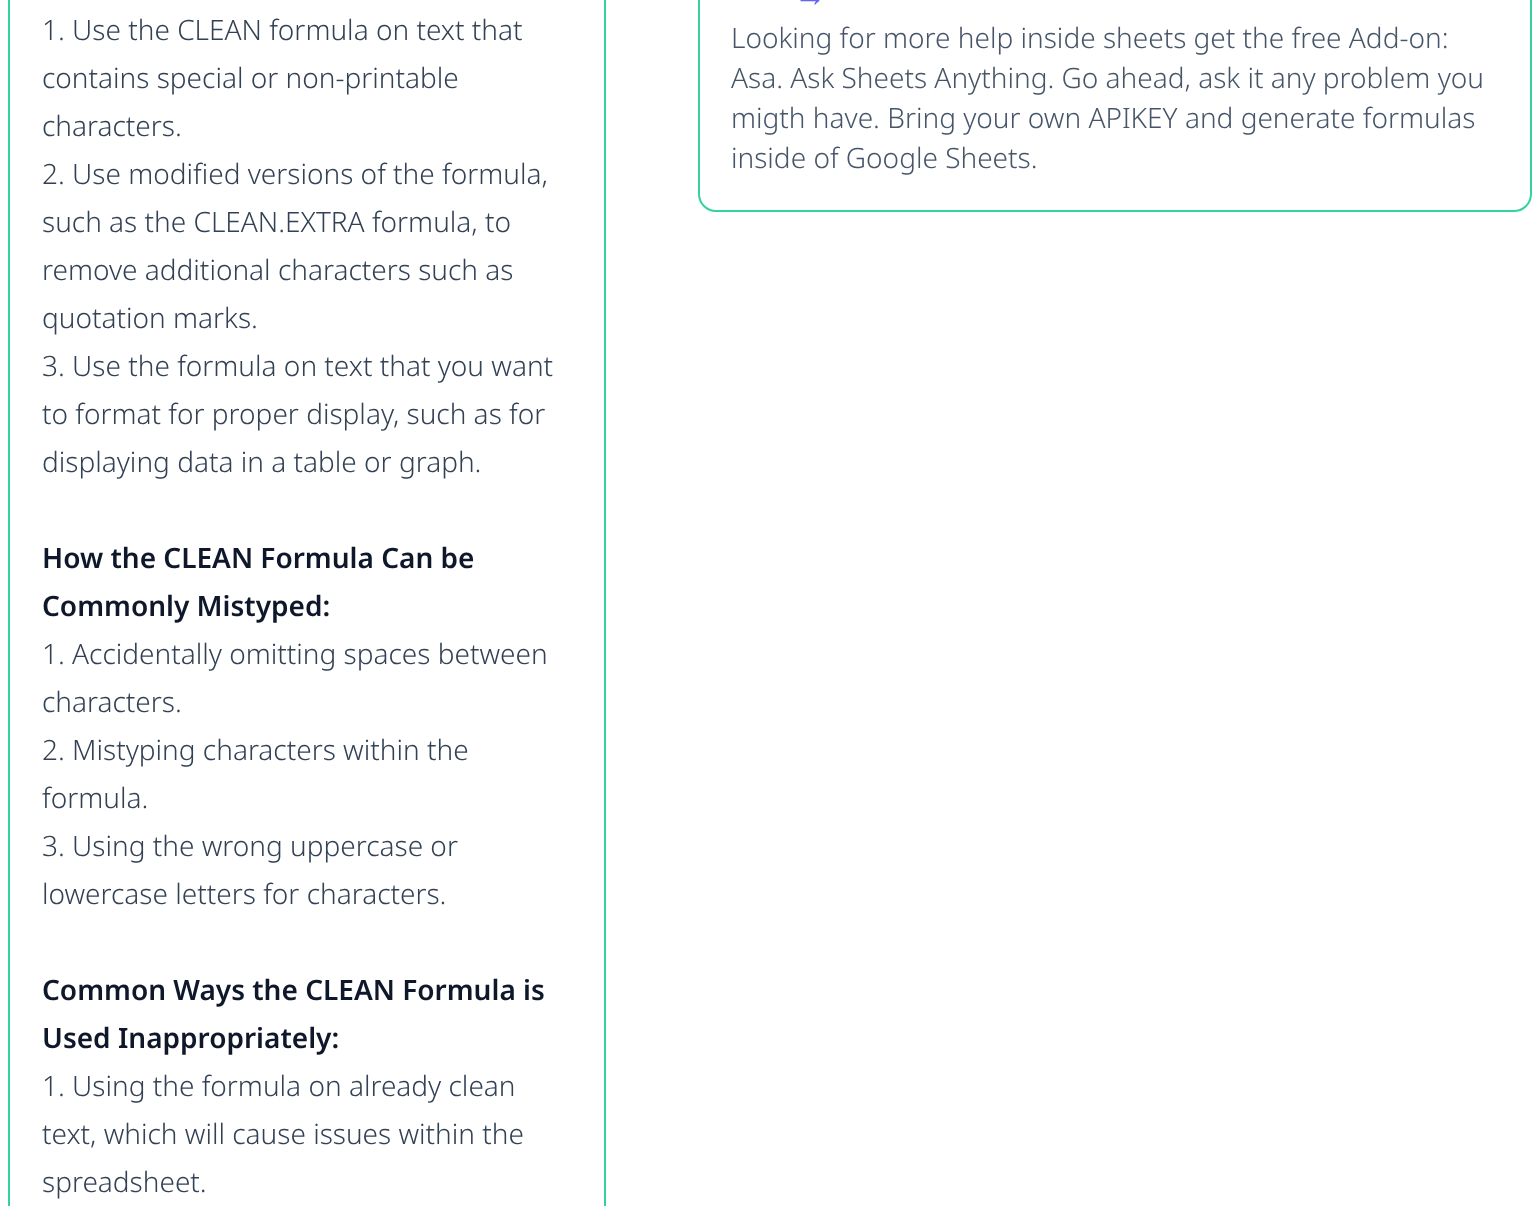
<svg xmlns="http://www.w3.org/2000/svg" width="1539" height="1206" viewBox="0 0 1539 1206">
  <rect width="100%" height="100%" fill="#fff"/>
  <path d="M9 -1h596v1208H9z" fill="none" stroke="#34d399" stroke-width="2"/>
  <rect x="699" y="-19" width="832" height="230" rx="17" fill="none" stroke="#34d399" stroke-width="2"/>
  <g font-family="Noto Sans" font-size="28" font-weight="300" fill="#334155">
    <text x="42" y="40">1. Use the CLEAN formula on text that</text>
    <text x="42" y="88">contains special or non-printable</text>
    <text x="42" y="136">characters.</text>
    <text x="42" y="184">2. Use modified versions of the formula,</text>
    <text x="42" y="232">such as the CLEAN.EXTRA formula, to</text>
    <text x="42" y="280">remove additional characters such as</text>
    <text x="42" y="328">quotation marks.</text>
    <text x="42" y="376">3. Use the formula on text that you want</text>
    <text x="42" y="424">to format for proper display, such as for</text>
    <text x="42" y="472">displaying data in a table or graph.</text>
  </g>
  <g font-family="Noto Sans" font-size="28" font-weight="600" fill="#0f172a">
    <text x="42" y="568">How the CLEAN Formula Can be</text>
    <text x="42" y="616">Commonly Mistyped:</text>
  </g>
  <g font-family="Noto Sans" font-size="28" font-weight="300" fill="#334155">
    <text x="42" y="664">1. Accidentally omitting spaces between</text>
    <text x="42" y="712">characters.</text>
    <text x="42" y="760">2. Mistyping characters within the</text>
    <text x="42" y="808">formula.</text>
    <text x="42" y="856">3. Using the wrong uppercase or</text>
    <text x="42" y="904">lowercase letters for characters.</text>
  </g>
  <g font-family="Noto Sans" font-size="28" font-weight="600" fill="#0f172a">
    <text x="42" y="1000">Common Ways the CLEAN Formula is</text>
    <text x="42" y="1048">Used Inappropriately:</text>
  </g>
  <g font-family="Noto Sans" font-size="28" font-weight="300" fill="#334155">
    <text x="42" y="1096">1. Using the formula on already clean</text>
    <text x="42" y="1144">text, which will cause issues within the</text>
    <text x="42" y="1192">spreadsheet.</text>
  </g>
  <text x="794" y="6" font-family="Liberation Sans" font-size="32" fill="#6366f1">→</text>
  <g font-family="Noto Sans" font-size="28" font-weight="300" fill="#475569">
    <text x="731" y="48">Looking for more help inside sheets get the free Add-on:</text>
    <text x="731" y="88">Asa. Ask Sheets Anything. Go ahead, ask it any problem you</text>
    <text x="731" y="128">migth have. Bring your own APIKEY and generate formulas</text>
    <text x="731" y="168">inside of Google Sheets.</text>
  </g>
</svg>
